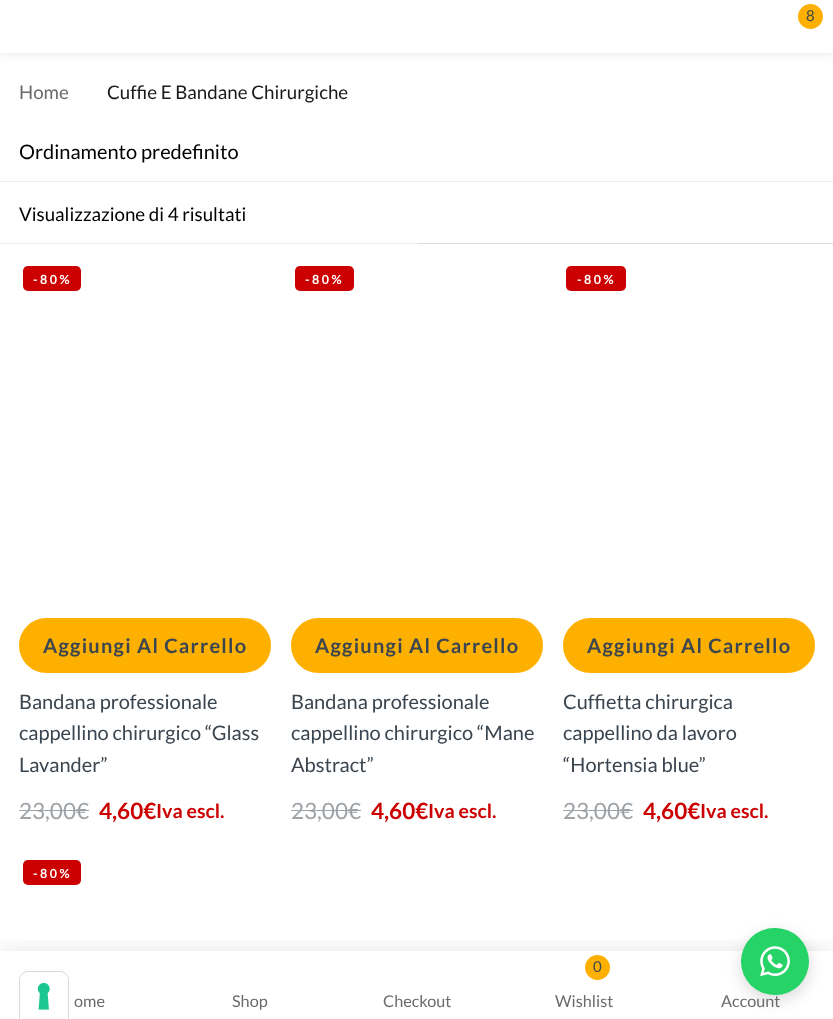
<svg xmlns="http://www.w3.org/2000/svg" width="833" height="1019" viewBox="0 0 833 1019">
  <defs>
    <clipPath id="clip1"><path d="M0 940h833v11H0z"/></clipPath>
  </defs>
  <rect width="100%" height="100%" fill="#fff"/>
  <path d="M0 243h418v1H0z" fill="#ebeced"/>
  <path d="M0 0h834v53H0z" fill="#0000001a" filter="blur(5px)"/>
  <path d="M0 0h833v53H0z" fill="#fff"/>
  <circle cx="810.5" cy="16.5" r="12.5" fill="#feb000"/>
  <path d="M0 181h833v1H0z" fill="#ebeced"/>
  <path d="M418 243h415v1H418z" fill="#d9dbdd"/>
  <rect x="23" y="266" width="58" height="25" rx="5" fill="#c00"/>
  <rect x="20.5" y="619.5" width="249" height="52" rx="26" fill="#feb000" stroke="#feb000" stroke-width="3"/>
  <path d="M19 810h70v1H19z" fill="#9da2a7"/>
  <rect x="295" y="266" width="59" height="25" rx="5" fill="#c00"/>
  <rect x="292.5" y="619.5" width="249" height="52" rx="26" fill="#feb000" stroke="#feb000" stroke-width="3"/>
  <path d="M291 810h70v1H291z" fill="#9da2a7"/>
  <rect x="566" y="266" width="60" height="25" rx="5" fill="#c00"/>
  <rect x="564.5" y="619.5" width="249" height="52" rx="26" fill="#feb000" stroke="#feb000" stroke-width="3"/>
  <path d="M563 810h70v1H563z" fill="#9da2a7"/>
  <rect x="23" y="860" width="58" height="25" rx="5" fill="#c00"/>
  <g clip-path="url(#clip1)">
    <path d="M0 951h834v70H0z" fill="#0000001a" filter="blur(12.5px)"/>
  </g>
  <circle cx="597.5" cy="967.5" r="12.5" fill="#feb000"/>
  <path d="M28 971.5H60C64.5 971.5 68.5 975.5 68.5 980V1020.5H19.5V980C19.5 975.5 23.5 971.5 28 971.5Z" fill="none" stroke="#00000026"/>
  <path d="M28 973H60C64.5 973 68 976.5 68 981V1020H20V981C20 976.5 23.5 973 28 973Z" fill="#fff"/>
  <image x="37" y="982" width="13" height="28" href="img/1.png"/>
  <rect x="741" y="933" width="68" height="67" rx="33.5" fill="#00000026" filter="blur(7.5px)"/>
  <rect x="741" y="928" width="68" height="67" rx="33.5" fill="#25d366"/>
  <image x="760" y="946" width="30" height="30" href="img/2.png"/>
  <text x="806" y="21" font-family="Lato" font-size="15" fill="#3a454f">8</text>
  <text x="19" y="99" font-family="Lato" font-size="18.75" fill="#6b6b6b">Home</text>
  <text x="107" y="99" font-family="Lato" font-size="18.75" fill="#191919">Cuffie E Bandane Chirurgiche</text>
  <text x="19" y="159" font-family="Lato" font-size="20" fill="#000">Ordinamento predefinito</text>
  <text x="19" y="221" font-family="Lato" font-size="18.75" fill="#000">Visualizzazione di 4 risultati</text>
  <text x="33" y="284" font-family="Lato" font-size="12.5" font-weight="bold" letter-spacing="2.5" fill="#fff">-80%</text>
  <text x="43" y="653" font-family="Lato" font-size="20" font-weight="bold" letter-spacing="1.25" fill="#3a454f">Aggiungi Al Carrello</text>
  <g font-family="Lato" font-size="20" fill="#3a454f">
    <text x="19" y="709">Bandana professionale</text>
    <text x="19" y="740">cappellino chirurgico “Glass</text>
    <text x="19" y="772">Lavander”</text>
  </g>
  <text x="19" y="819" font-family="Lato" font-size="22.5" fill="#9da2a7">23,00€</text>
  <text x="99" y="819" font-family="Lato" font-size="22.5" font-weight="bold" fill="#c00">4,60€</text>
  <text x="156" y="818" font-family="Lato" font-size="19.5" font-weight="bold" fill="#c00">Iva escl.</text>
  <text x="305" y="284" font-family="Lato" font-size="12.5" font-weight="bold" letter-spacing="2.5" fill="#fff">-80%</text>
  <text x="315" y="653" font-family="Lato" font-size="20" font-weight="bold" letter-spacing="1.25" fill="#3a454f">Aggiungi Al Carrello</text>
  <g font-family="Lato" font-size="20" fill="#3a454f">
    <text x="291" y="709">Bandana professionale</text>
    <text x="291" y="740">cappellino chirurgico “Mane</text>
    <text x="291" y="772">Abstract”</text>
  </g>
  <text x="291" y="819" font-family="Lato" font-size="22.5" fill="#9da2a7">23,00€</text>
  <text x="371" y="819" font-family="Lato" font-size="22.5" font-weight="bold" fill="#c00">4,60€</text>
  <text x="428" y="818" font-family="Lato" font-size="19.5" font-weight="bold" fill="#c00">Iva escl.</text>
  <text x="577" y="284" font-family="Lato" font-size="12.5" font-weight="bold" letter-spacing="2.5" fill="#fff">-80%</text>
  <text x="587" y="653" font-family="Lato" font-size="20" font-weight="bold" letter-spacing="1.25" fill="#3a454f">Aggiungi Al Carrello</text>
  <g font-family="Lato" font-size="20" fill="#3a454f">
    <text x="563" y="709">Cuffietta chirurgica</text>
    <text x="563" y="740">cappellino da lavoro</text>
    <text x="563" y="772">“Hortensia blue”</text>
  </g>
  <text x="563" y="819" font-family="Lato" font-size="22.5" fill="#9da2a7">23,00€</text>
  <text x="643" y="819" font-family="Lato" font-size="22.5" font-weight="bold" fill="#c00">4,60€</text>
  <text x="700" y="818" font-family="Lato" font-size="19.5" font-weight="bold" fill="#c00">Iva escl.</text>
  <text x="33" y="878" font-family="Lato" font-size="12.5" font-weight="bold" letter-spacing="2.5" fill="#fff">-80%</text>
  <g font-family="Lato" font-size="16.25" fill="#6b6b6b">
    <text x="74" y="1007">ome</text>
    <text x="232" y="1007">Shop</text>
    <text x="383" y="1007">Checkout</text>
  </g>
  <text x="593" y="972" font-family="Lato" font-size="15" fill="#3a454f">0</text>
  <g font-family="Lato" font-size="16.25" fill="#6b6b6b">
    <text x="555" y="1007">Wishlist</text>
    <text x="721" y="1007">Account</text>
  </g>
</svg>
